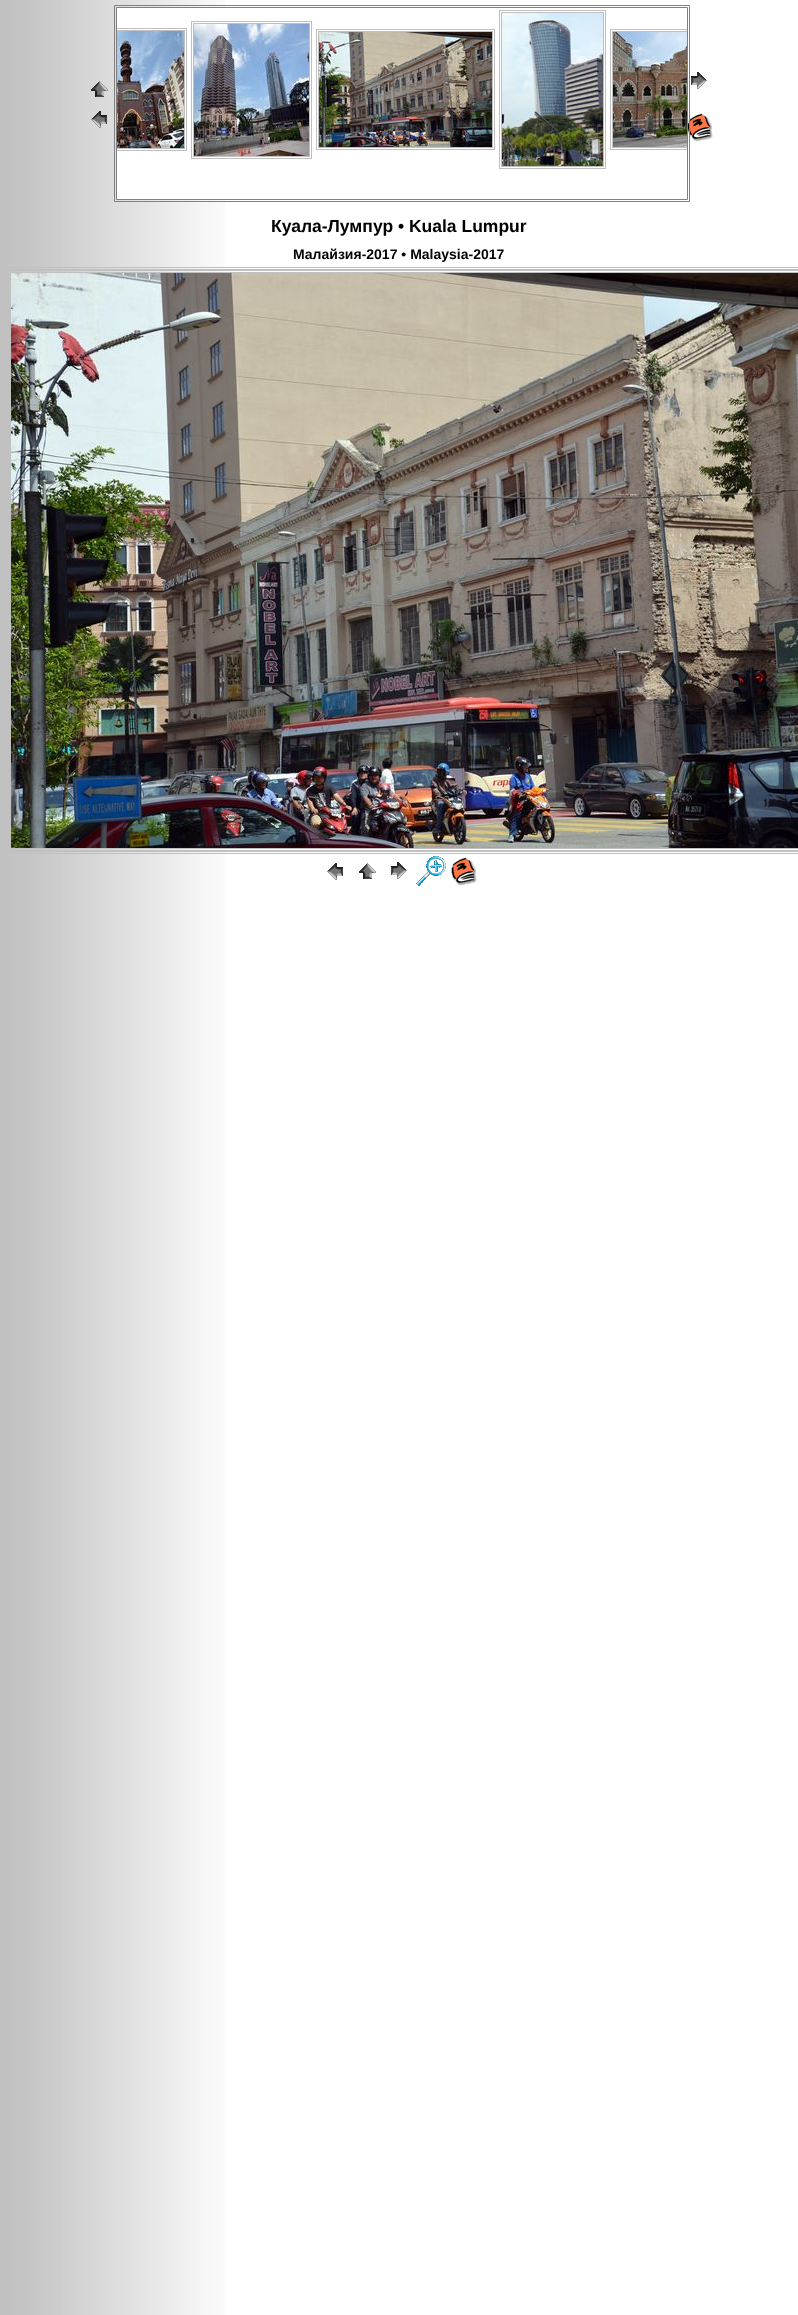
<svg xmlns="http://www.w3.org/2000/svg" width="798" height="2315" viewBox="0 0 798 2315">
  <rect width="100%" height="100%" fill="#fff"/>
  <image x="0" y="0" width="225" height="2315" href="img/1.png"/>
  <image x="91" y="81" width="17" height="16" href="img/2.png"/>
  <image x="91" y="111" width="16" height="17" href="img/3.png"/>
  <image x="688" y="113" width="25" height="29" href="img/6.png"/>
  <path d="M114.5 5.5h575v196H114.5z" fill="none" stroke="#808080"/>
  <path d="M116.5 7.5h571v192H116.5z" fill="none" stroke="#808080"/>
  <image x="117" y="8" width="570" height="191" href="img/4.png"/>
  <image x="691" y="72" width="16" height="17" href="img/5.png"/>
  <path d="M5.5 267.5h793v586H5.5z" fill="none" stroke="#c0c0c0"/>
  <path d="M7.5 269.5h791v582H7.5z" fill="none" stroke="#c0c0c0"/>
  <path d="M8.5 270.5h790v580H8.5z" fill="none" stroke="#c0c0c0"/>
  <path d="M10.5 272.5h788v576H10.5z" fill="none" stroke="#c0c0c0"/>
  <image x="11" y="273" width="787" height="575" href="img/7.png"/>
  <image x="327" y="863" width="16" height="17" href="img/8.png"/>
  <image x="359" y="863" width="17" height="16" href="img/9.png"/>
  <image x="391" y="862" width="16" height="17" href="img/5.png"/>
  <image x="416" y="856" width="30" height="30" href="img/10.png"/>
  <image x="451" y="857" width="26" height="29" href="img/11.png"/>
  <text x="271" y="232" font-family="Liberation Sans" font-size="17.5" font-weight="bold" fill="#000">Куала-Лумпур • Kuala Lumpur</text>
  <text x="293" y="259" font-family="Liberation Sans" font-size="14" font-weight="bold" fill="#000">Малайзия-2017 • Malaysia-2017</text>
</svg>
